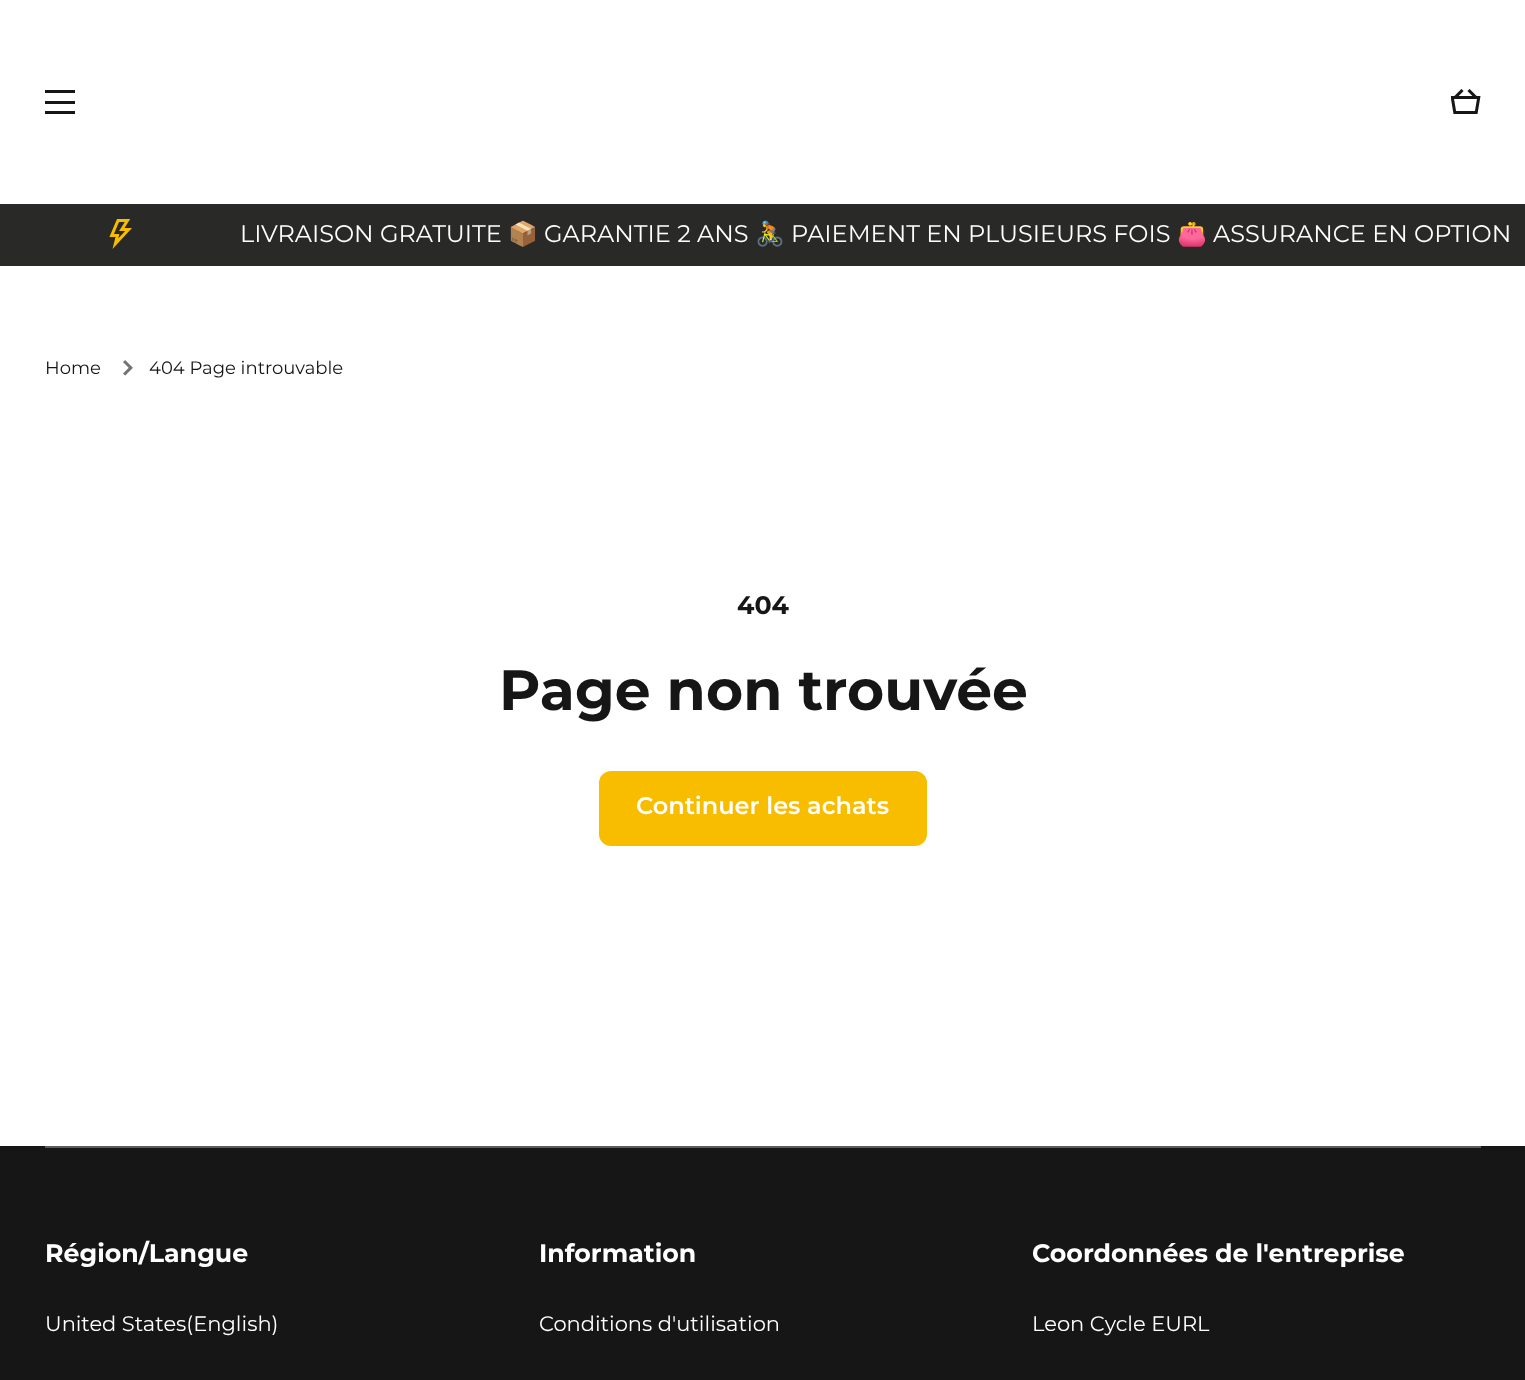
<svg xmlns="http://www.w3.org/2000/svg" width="1525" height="1380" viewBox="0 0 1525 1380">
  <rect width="100%" height="100%" fill="#fff"/>
  <path d="M45 90h30v3H45z" fill="#161616"/>
  <path d="M45 101h30v3H45z" fill="#161616"/>
  <path d="M45 111h30v3H45z" fill="#161616"/>
  <image x="1451" y="89" width="30" height="25" href="img/1.png"/>
  <path d="M0 204h1525v62H0z" fill="#292927"/>
  <image x="109" y="219" width="23" height="30" href="img/2.png"/>
  <image x="123" y="360" width="10" height="16" href="img/3.png"/>
  <rect x="599" y="771" width="328" height="75" rx="12" fill="#f9bd00"/>
  <path d="M0 1146h1525v234H0z" fill="#161616"/>
  <path d="M45 1146h1436v2H45z" fill="#5c5c5c"/>
  <text x="240" y="242" font-family="Montserrat" font-size="24" fill="#fff">LIVRAISON GRATUITE</text>
  <text x="508" y="242" font-family="Noto Color Emoji" font-size="24" fill="#fff">📦</text>
  <text x="544" y="242" font-family="Montserrat" font-size="24" fill="#fff">GARANTIE 2 ANS</text>
  <text x="755" y="242" font-family="Noto Color Emoji" font-size="24" fill="#fff">🚴</text>
  <text x="791" y="242" font-family="Montserrat" font-size="24" fill="#fff">PAIEMENT EN PLUSIEURS FOIS</text>
  <text x="1177" y="242" font-family="Noto Color Emoji" font-size="24" fill="#fff">👛</text>
  <text x="1213" y="242" font-family="Montserrat" font-size="24" fill="#fff">ASSURANCE EN OPTION</text>
  <g font-family="Montserrat" font-size="18" fill="#161616">
    <text x="45" y="374">Home</text>
    <text x="149" y="374">404 Page introuvable</text>
  </g>
  <text x="737" y="614" font-family="Montserrat" font-size="25.25" font-weight="bold" fill="#161616">404</text>
  <text x="499" y="710" font-family="Montserrat" font-size="56.75" font-weight="bold" fill="#161616">Page non trouvée</text>
  <text x="636" y="814" font-family="Montserrat" font-size="24" font-weight="600" fill="#fff">Continuer les achats</text>
  <text x="45" y="1262" font-family="Montserrat" font-size="25.25" font-weight="bold" fill="#fff">Région/Langue</text>
  <text x="45" y="1331" font-family="Montserrat" font-size="21" fill="#fff">United States(English)</text>
  <text x="539" y="1262" font-family="Montserrat" font-size="25.25" font-weight="bold" fill="#fff">Information</text>
  <text x="539" y="1331" font-family="Montserrat" font-size="21" fill="#fff">Conditions d'utilisation</text>
  <text x="1032" y="1262" font-family="Montserrat" font-size="25.25" font-weight="bold" fill="#fff">Coordonnées de l'entreprise</text>
  <text x="1032" y="1331" font-family="Montserrat" font-size="21" fill="#fff">Leon Cycle EURL</text>
</svg>
